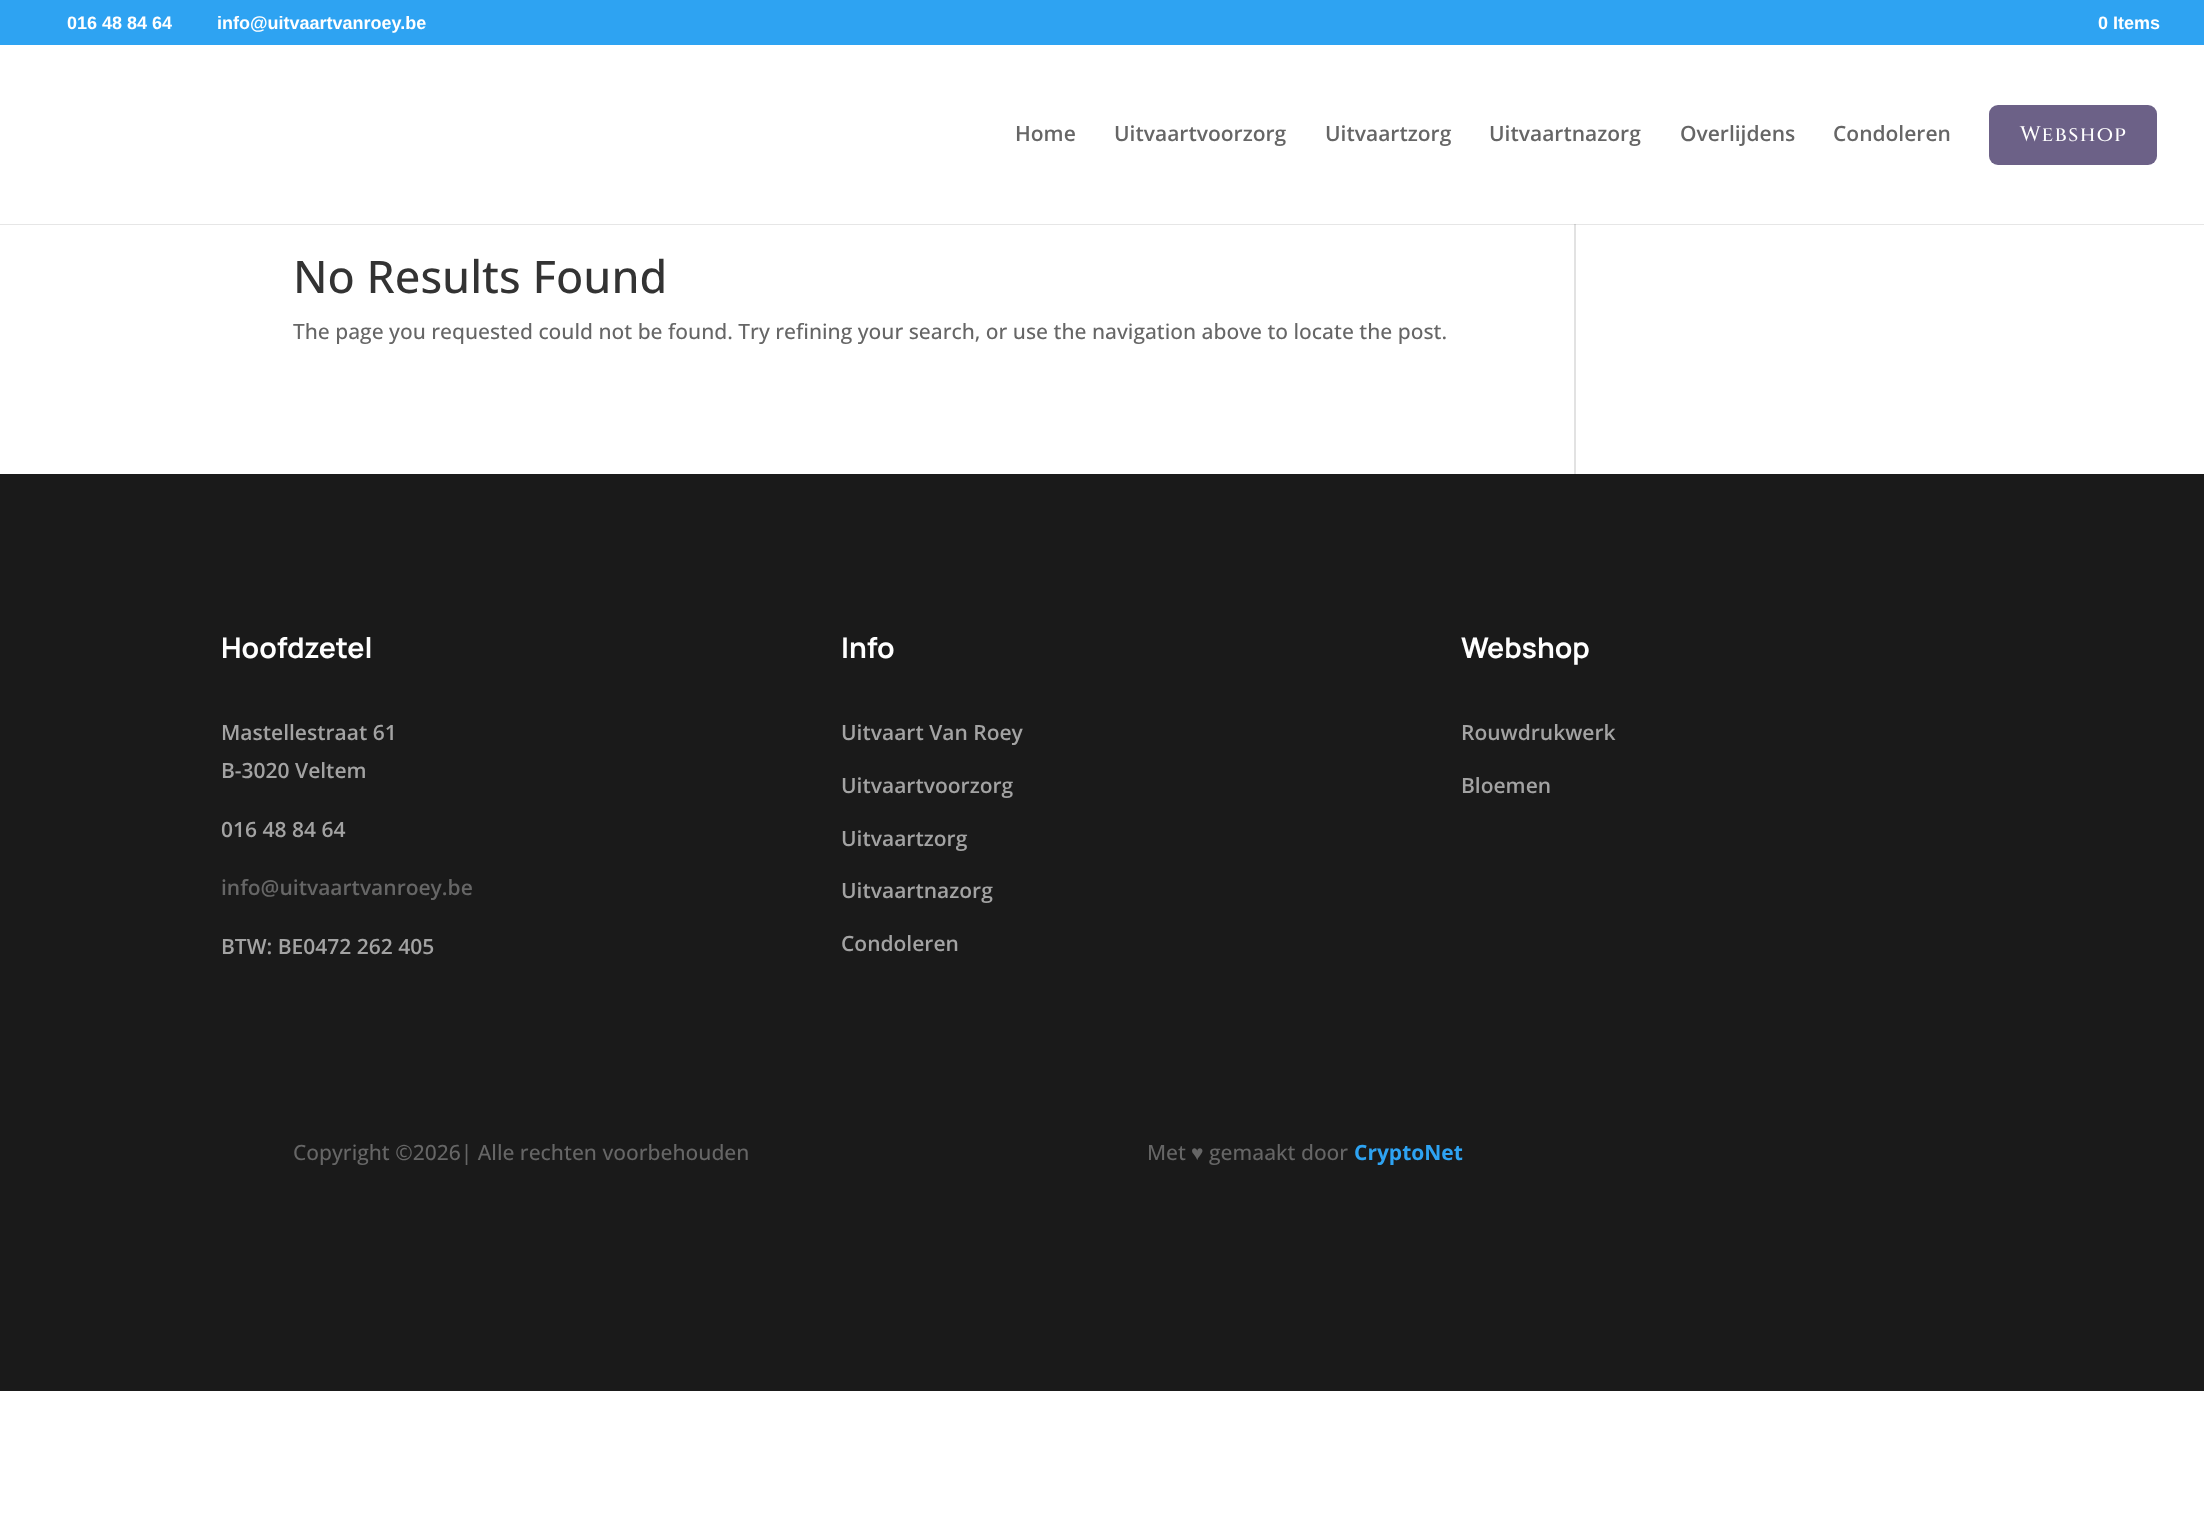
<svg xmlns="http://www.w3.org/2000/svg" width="2204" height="1522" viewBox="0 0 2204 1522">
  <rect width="100%" height="100%" fill="#fff"/>
  <path d="M0 224h2204v1H0z" fill="#e6e6e6"/>
  <path d="M0 0h2204v45H0z" fill="#2ea3f2"/>
  <rect x="1989" y="105" width="168" height="60" rx="9" fill="#6c6187"/>
  <path d="M1574 225h2v249H1574z" fill="#e2e2e2"/>
  <path d="M1574 224h2v1H1574z" fill="#cbcbcb"/>
  <path d="M0 474h2204v917H0z" fill="#1a1a1a"/>
  <g font-family="Liberation Sans" font-size="18" font-weight="bold" fill="#fff">
    <text x="67" y="29">016 48 84 64</text>
    <text x="217" y="29">info@uitvaartvanroey.be</text>
    <text x="2098" y="29">0 Items</text>
  </g>
  <g font-family="Open Sans" font-size="21" font-weight="600" fill="#666">
    <text x="1015" y="141">Home</text>
    <text x="1114" y="141">Uitvaartvoorzorg</text>
    <text x="1325" y="141">Uitvaartzorg</text>
    <text x="1489" y="141">Uitvaartnazorg</text>
    <text x="1680" y="141">Overlijdens</text>
    <text x="1833" y="141">Condoleren</text>
  </g>
  <text x="2020" y="141" font-family="Cinzel" font-size="21" font-weight="500" letter-spacing="1.5" fill="#fff">Webshop</text>
  <text x="293" y="293" font-family="Open Sans" font-size="45" font-weight="500" fill="#333">No Results Found</text>
  <text x="293" y="339" font-family="Open Sans" font-size="21" font-weight="500" fill="#666">The page you requested could not be found. Try refining your search, or use the navigation above to locate the post.</text>
  <text x="221" y="658" font-family="Manrope" font-size="28.5" font-weight="200" fill="#fff">Hoofdzetel</text>
  <g font-family="Open Sans" font-size="21" font-weight="600" fill="#a3a3a3">
    <text x="221" y="740">Mastellestraat 61</text>
    <text x="221" y="778">B-3020 Veltem</text>
    <text x="221" y="837">016 48 84 64</text>
  </g>
  <text x="221" y="895" font-family="Open Sans" font-size="21" font-weight="600" fill="#666">info@uitvaartvanroey.be</text>
  <text x="221" y="954" font-family="Open Sans" font-size="21" font-weight="600" fill="#a3a3a3">BTW: BE0472 262 405</text>
  <text x="841" y="658" font-family="Manrope" font-size="28.5" font-weight="200" fill="#fff">Info</text>
  <g font-family="Open Sans" font-size="21" font-weight="600" fill="#a3a3a3">
    <text x="841" y="740">Uitvaart Van Roey</text>
    <text x="841" y="793">Uitvaartvoorzorg</text>
    <text x="841" y="846">Uitvaartzorg</text>
    <text x="841" y="898">Uitvaartnazorg</text>
    <text x="841" y="951">Condoleren</text>
  </g>
  <text x="1461" y="658" font-family="Manrope" font-size="28.5" font-weight="200" fill="#fff">Webshop</text>
  <g font-family="Open Sans" font-size="21" font-weight="600" fill="#a3a3a3">
    <text x="1461" y="740">Rouwdrukwerk</text>
    <text x="1461" y="793">Bloemen</text>
  </g>
  <g font-family="Open Sans" font-size="21" font-weight="500" fill="#666">
    <text x="293" y="1160">Copyright ©2026| Alle rechten voorbehouden</text>
    <text x="1147" y="1160">Met</text>
  </g>
  <text x="1191" y="1160" font-family="Liberation Sans" font-size="21" fill="#666">♥</text>
  <text x="1209" y="1160" font-family="Open Sans" font-size="21" font-weight="500" fill="#666">gemaakt door</text>
  <text x="1354" y="1160" font-family="Open Sans" font-size="21" font-weight="bold" fill="#2ea3f2">CryptoNet</text>
</svg>
